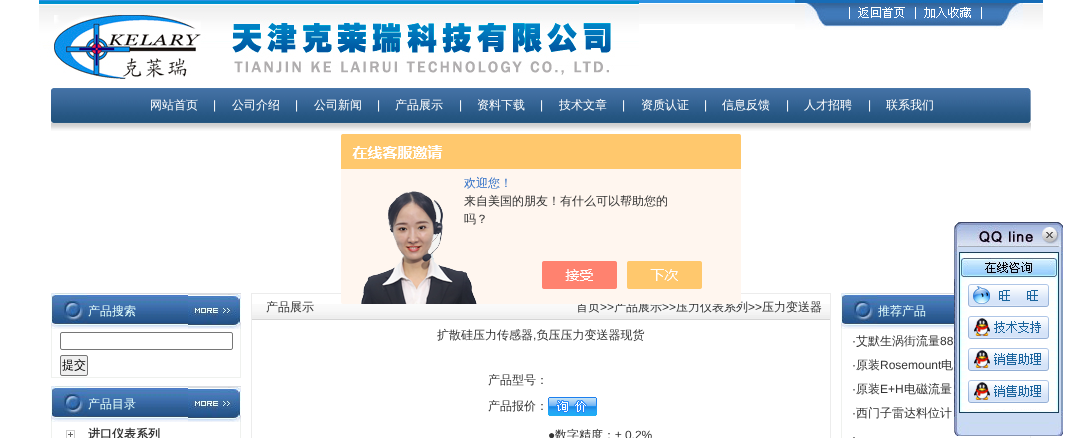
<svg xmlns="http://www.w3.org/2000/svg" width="1082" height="438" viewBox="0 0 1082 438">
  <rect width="100%" height="100%" fill="#fff"/>
  <image x="39" y="0" width="756" height="24" href="img/1.png"/>
  <image x="39" y="1" width="600" height="78" href="img/2.png"/>
  <image x="795" y="0" width="248" height="30" href="img/3.png"/>
  <image x="54" y="88" width="970" height="35" href="img/4.png"/>
  <image x="51" y="88" width="3" height="35" href="img/5.png"/>
  <image x="1024" y="88" width="7" height="35" href="img/6.png"/>
  <image x="51" y="123" width="980" height="8" href="img/7.png"/>
  <image x="88" y="293" width="153" height="36" href="img/9.png"/>
  <image x="51" y="293" width="37" height="36" href="img/10.png"/>
  <image x="188" y="294" width="53" height="35" href="img/11.png"/>
  <path d="M240 329h1v49H240z" fill="#eff1ee"/>
  <path d="M51 377h190v1H51z" fill="#eff1ee"/>
  <path d="M51 329h1v49H51z" fill="#eff1ee"/>
  <rect x="60.5" y="332.5" width="172" height="17" rx="1.5" fill="none" stroke="#767676"/>
  <rect x="60.5" y="355.5" width="27" height="20" rx="1.5" fill="#efefef" stroke="#767676"/>
  <image x="88" y="386" width="153" height="36" href="img/9.png"/>
  <image x="51" y="386" width="37" height="36" href="img/10.png"/>
  <image x="188" y="387" width="53" height="35" href="img/11.png"/>
  <path d="M240 422h1v16H240z" fill="#eff1ee"/>
  <path d="M51 422h1v16H51z" fill="#eff1ee"/>
  <image x="66" y="430" width="9" height="8" href="img/12.png"/>
  <path d="M251 293h580v1H251z" fill="#ececec"/>
  <path d="M830 293h1v145H830z" fill="#ececec"/>
  <path d="M251 293h1v145H251z" fill="#ececec"/>
  <image x="252" y="304" width="578" height="16" href="img/13.png"/>
  <image x="548" y="397" width="49" height="19" href="img/14.png"/>
  <image x="878" y="293" width="76" height="36" href="img/15.png"/>
  <image x="841" y="293" width="37" height="36" href="img/10.png"/>
  <path d="M1030 436h1v2H1030z" fill="#eff1ee"/>
  <path d="M841 329h1v109H841z" fill="#eff1ee"/>
  <image x="954" y="222" width="109" height="57" href="img/16.png"/>
  <image x="954" y="279" width="109" height="32" href="img/17.png"/>
  <image x="968" y="284" width="81" height="23" href="img/18.png"/>
  <image x="954" y="311" width="109" height="32" href="img/17.png"/>
  <image x="968" y="316" width="81" height="23" href="img/19.png"/>
  <image x="954" y="343" width="109" height="32" href="img/17.png"/>
  <image x="968" y="348" width="81" height="23" href="img/20.png"/>
  <image x="954" y="375" width="109" height="32" href="img/17.png"/>
  <image x="968" y="380" width="81" height="23" href="img/20.png"/>
  <image x="954" y="407" width="109" height="29" href="img/21.png"/>
  <text x="150" y="109" font-family="WenQuanYi Zen Hei" font-size="12" font-weight="500" fill="#fff">网站首页</text>
  <text x="213" y="109" font-family="Liberation Sans" font-size="12" fill="#fff">|</text>
  <text x="232" y="109" font-family="WenQuanYi Zen Hei" font-size="12" font-weight="500" fill="#fff">公司介绍</text>
  <text x="295" y="109" font-family="Liberation Sans" font-size="12" fill="#fff">|</text>
  <text x="314" y="109" font-family="WenQuanYi Zen Hei" font-size="12" font-weight="500" fill="#fff">公司新闻</text>
  <text x="377" y="109" font-family="Liberation Sans" font-size="12" fill="#fff">|</text>
  <text x="395" y="109" font-family="WenQuanYi Zen Hei" font-size="12" font-weight="500" fill="#fff">产品展示</text>
  <text x="459" y="109" font-family="Liberation Sans" font-size="12" fill="#fff">|</text>
  <text x="477" y="109" font-family="WenQuanYi Zen Hei" font-size="12" font-weight="500" fill="#fff">资料下载</text>
  <text x="540" y="109" font-family="Liberation Sans" font-size="12" fill="#fff">|</text>
  <text x="559" y="109" font-family="WenQuanYi Zen Hei" font-size="12" font-weight="500" fill="#fff">技术文章</text>
  <text x="622" y="109" font-family="Liberation Sans" font-size="12" fill="#fff">|</text>
  <text x="641" y="109" font-family="WenQuanYi Zen Hei" font-size="12" font-weight="500" fill="#fff">资质认证</text>
  <text x="704" y="109" font-family="Liberation Sans" font-size="12" fill="#fff">|</text>
  <text x="722" y="109" font-family="WenQuanYi Zen Hei" font-size="12" font-weight="500" fill="#fff">信息反馈</text>
  <text x="786" y="109" font-family="Liberation Sans" font-size="12" fill="#fff">|</text>
  <text x="804" y="109" font-family="WenQuanYi Zen Hei" font-size="12" font-weight="500" fill="#fff">人才招聘</text>
  <text x="868" y="109" font-family="Liberation Sans" font-size="12" fill="#fff">|</text>
  <text x="886" y="109" font-family="WenQuanYi Zen Hei" font-size="12" font-weight="500" fill="#fff">联系我们</text>
  <text x="88" y="315" font-family="WenQuanYi Zen Hei" font-size="12" font-weight="500" fill="#e2fffd">产品搜索</text>
  <text x="62" y="369" font-family="WenQuanYi Zen Hei" font-size="12" font-weight="500" fill="#000">提交</text>
  <text x="88" y="408" font-family="WenQuanYi Zen Hei" font-size="12" font-weight="500" fill="#e2fffd">产品目录</text>
  <text x="88" y="438" font-family="WenQuanYi Zen Hei" font-size="12" font-weight="bold" fill="#333">进口仪表系列</text>
  <g font-family="WenQuanYi Zen Hei" font-size="12" font-weight="500" fill="#333">
    <text x="266" y="311">产品展示</text>
    <text x="576" y="311">首页</text>
  </g>
  <text x="600" y="311" font-family="Liberation Sans" font-size="12" fill="#333">&gt;&gt;</text>
  <text x="614" y="311" font-family="WenQuanYi Zen Hei" font-size="12" font-weight="500" fill="#333">产品展示</text>
  <text x="662" y="311" font-family="Liberation Sans" font-size="12" fill="#333">&gt;&gt;</text>
  <text x="676" y="311" font-family="WenQuanYi Zen Hei" font-size="12" font-weight="500" fill="#333">压力仪表系列</text>
  <image x="341" y="134" width="400" height="170" href="img/8.png"/>
  <g font-family="WenQuanYi Zen Hei" font-size="12" font-weight="500" fill="#333">
    <text x="464" y="223">吗？</text>
    <text x="464" y="205">来自美国的朋友！有什么可以帮助您的</text>
  </g>
  <text x="464" y="187" font-family="WenQuanYi Zen Hei" font-size="12" font-weight="500" fill="#2e6ec6">欢迎您！</text>
  <text x="748" y="311" font-family="Liberation Sans" font-size="12" fill="#333">&gt;&gt;</text>
  <g font-family="WenQuanYi Zen Hei" font-size="12" font-weight="500" fill="#333">
    <text x="762" y="311">压力变送器</text>
    <text x="437" y="339">扩散硅压力传感器 负压压力变送器现货</text>
  </g>
  <text x="533" y="339" font-family="Liberation Sans" font-size="12" fill="#333">,</text>
  <g font-family="WenQuanYi Zen Hei" font-size="12" font-weight="500" fill="#333">
    <text x="488" y="384">产品型号：</text>
    <text x="488" y="410">产品报价：</text>
  </g>
  <text x="548" y="439" font-family="Liberation Sans" font-size="12" fill="#333">●</text>
  <text x="555" y="439" font-family="WenQuanYi Zen Hei" font-size="12" font-weight="500" fill="#333">数字精度：</text>
  <text x="615" y="439" font-family="Liberation Sans" font-size="12" fill="#333">± 0.2%</text>
  <text x="878" y="315" font-family="WenQuanYi Zen Hei" font-size="12" font-weight="500" fill="#e2fffd">推荐产品</text>
  <text x="852" y="345" font-family="Liberation Sans" font-size="12" fill="#333">·</text>
  <text x="856" y="345" font-family="WenQuanYi Zen Hei" font-size="12" font-weight="500" fill="#333">艾默生涡街流量</text>
  <g font-family="Liberation Sans" font-size="12" fill="#333">
    <text x="940" y="345">88</text>
    <text x="852" y="369">·</text>
  </g>
  <text x="856" y="369" font-family="WenQuanYi Zen Hei" font-size="12" font-weight="500" fill="#333">原装</text>
  <text x="880" y="369" font-family="Liberation Sans" font-size="12" fill="#333">Rosemount</text>
  <text x="941" y="369" font-family="WenQuanYi Zen Hei" font-size="12" font-weight="500" fill="#333">电</text>
  <text x="852" y="393" font-family="Liberation Sans" font-size="12" fill="#333">·</text>
  <text x="856" y="393" font-family="WenQuanYi Zen Hei" font-size="12" font-weight="500" fill="#333">原装</text>
  <text x="880" y="393" font-family="Liberation Sans" font-size="12" fill="#333">E+H</text>
  <text x="904" y="393" font-family="WenQuanYi Zen Hei" font-size="12" font-weight="500" fill="#333">电磁流量</text>
  <text x="852" y="417" font-family="Liberation Sans" font-size="12" fill="#333">·</text>
  <text x="856" y="417" font-family="WenQuanYi Zen Hei" font-size="12" font-weight="500" fill="#333">西门子雷达料位计</text>
  <text x="852" y="441" font-family="Liberation Sans" font-size="12" fill="#333">·</text>
</svg>
